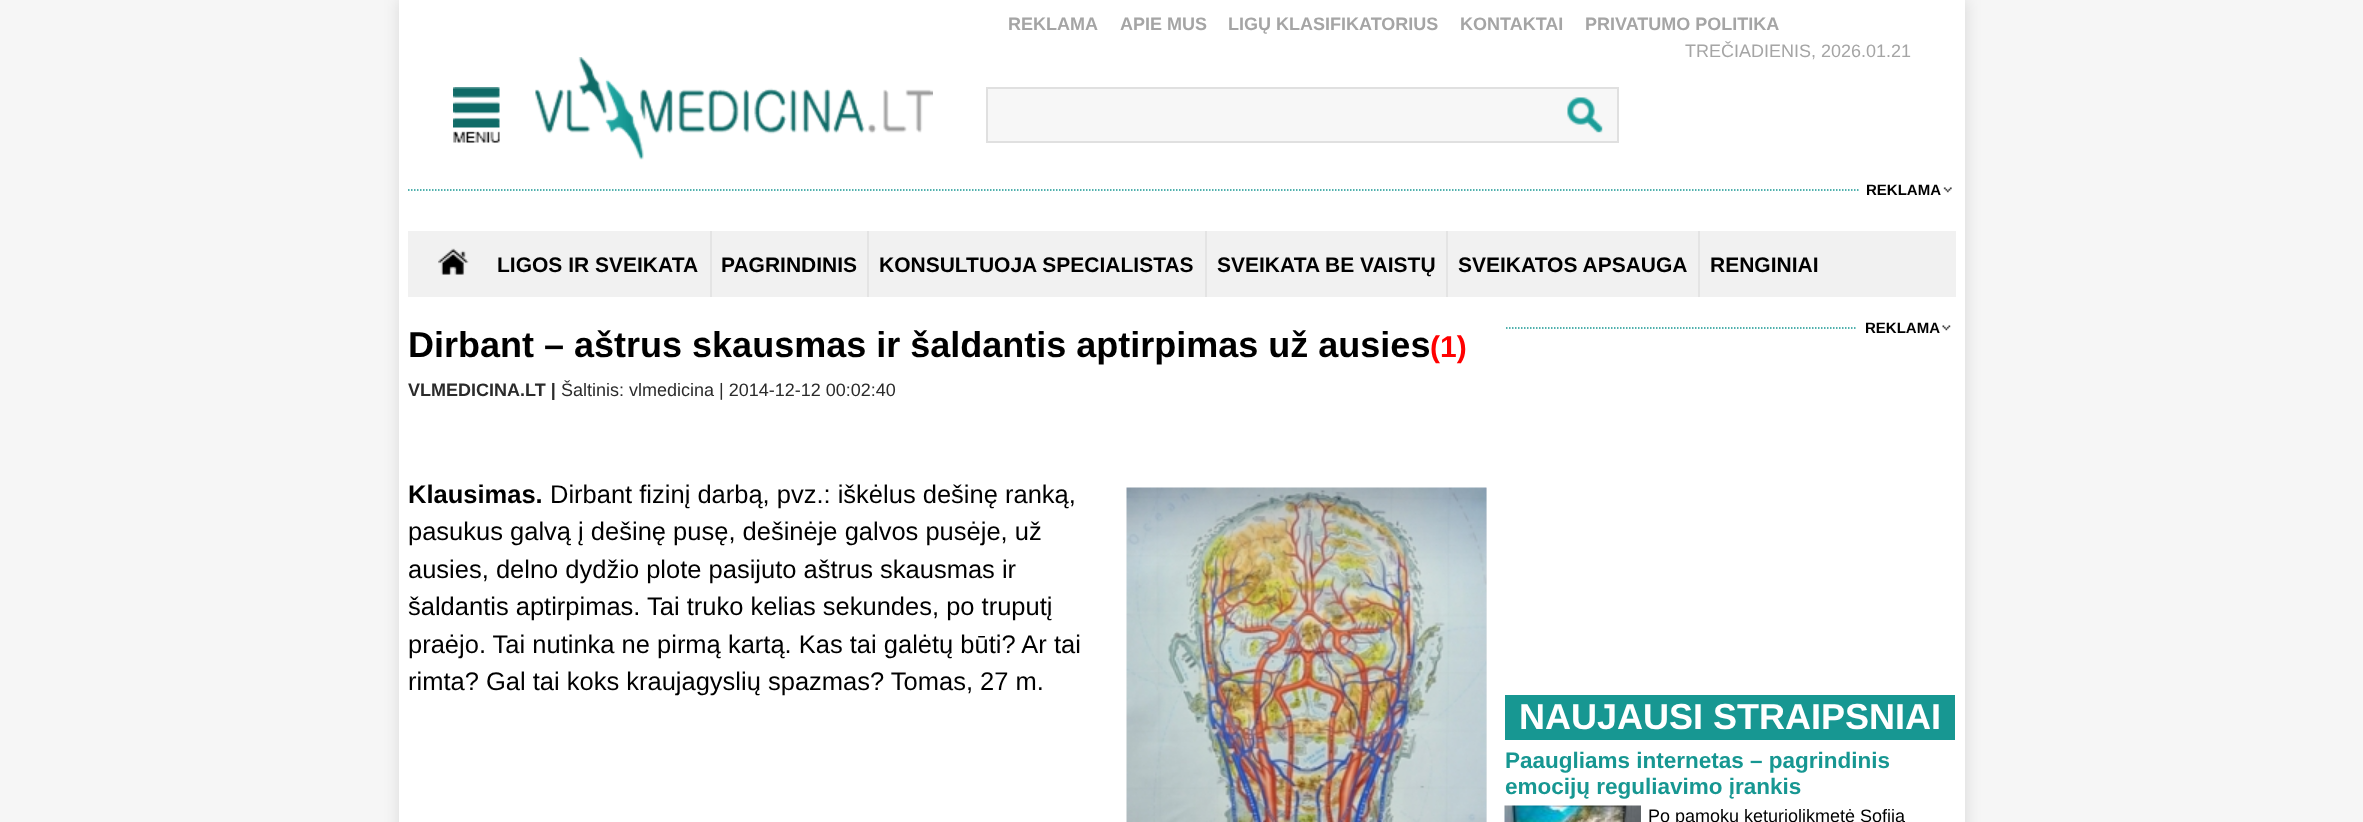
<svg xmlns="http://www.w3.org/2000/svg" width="2363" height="822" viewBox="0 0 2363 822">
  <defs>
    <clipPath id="clip1"><path d="M408 174h1548v27H408z"/></clipPath>
    <clipPath id="clip2"><path d="M1505 312h450v27H1505z"/></clipPath>
  </defs>
  <rect width="100%" height="100%" fill="#f6f6f6"/>
  <path d="M398 -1h1569v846H398z" fill="#0000001a" filter="blur(7.5px)"/>
  <path d="M399 0h1566v822H399z" fill="#fff"/>
  <image x="453" y="87" width="47" height="56" href="img/1.png"/>
  <image x="535" y="57" width="398" height="103" href="img/2.png"/>
  <path d="M987 88h631v54H987z" fill="#f7f7f7" stroke="#e0e0e0" stroke-width="2"/>
  <image x="1567" y="97" width="36" height="36" href="img/3.png"/>
  <image x="1943" y="187" width="9" height="6" href="img/4.png"/>
  <g clip-path="url(#clip1)">
    <path d="M366 190H1858.5" fill="none" stroke="#179792" stroke-width="1.5" stroke-dasharray="1.5 1.5"/>
  </g>
  <path d="M408 231h1548v66H408z" fill="#f1f1f1"/>
  <image x="438" y="248" width="31" height="27" href="img/5.png"/>
  <path d="M710 231h2v66H710z" fill="#e4e4e4"/>
  <path d="M867 231h2v66H867z" fill="#e4e4e4"/>
  <path d="M1205 231h2v66H1205z" fill="#e4e4e4"/>
  <path d="M1446 231h2v66H1446z" fill="#e4e4e4"/>
  <path d="M1698 231h2v66H1698z" fill="#e4e4e4"/>
  <path d="M1486 488h1v334H1486z" fill="#f1f1f1"/>
  <image x="1126" y="487" width="361" height="335" href="img/6.png"/>
  <image x="1942" y="325" width="9" height="6" href="img/7.png"/>
  <g clip-path="url(#clip2)">
    <path d="M1407 328H1857" fill="none" stroke="#179792" stroke-width="1.5" stroke-dasharray="1.5 1.5"/>
  </g>
  <path d="M1505 695h450v45H1505z" fill="#179792"/>
  <image x="1504" y="805" width="137" height="17" href="img/8.png"/>
  <g font-family="Liberation Sans" font-size="18" font-weight="bold" fill="#a5a5a5">
    <text x="1008" y="30">REKLAMA</text>
    <text x="1120" y="30">APIE MUS</text>
    <text x="1228" y="30">LIGŲ KLASIFIKATORIUS</text>
    <text x="1460" y="30">KONTAKTAI</text>
    <text x="1585" y="30">PRIVATUMO POLITIKA</text>
  </g>
  <text x="1685" y="57" font-family="Liberation Sans" font-size="18" fill="#a5a5a5">TREČIADIENIS, 2026.01.21</text>
  <text x="1866" y="195" font-family="Liberation Sans" font-size="15" font-weight="bold" fill="#000">REKLAMA</text>
  <g font-family="Liberation Sans" font-size="21" font-weight="bold" fill="#000">
    <text x="497" y="272">LIGOS IR SVEIKATA</text>
    <text x="721" y="272">PAGRINDINIS</text>
    <text x="879" y="272">KONSULTUOJA SPECIALISTAS</text>
    <text x="1217" y="272">SVEIKATA BE VAISTŲ</text>
    <text x="1458" y="272">SVEIKATOS APSAUGA</text>
    <text x="1710" y="272">RENGINIAI</text>
  </g>
  <text x="408" y="357" font-family="Liberation Sans" font-size="36" font-weight="bold" fill="#000">Dirbant – aštrus skausmas ir šaldantis aptirpimas už ausies</text>
  <text x="1430" y="357" font-family="Liberation Sans" font-size="30" font-weight="bold" fill="#f00">(1)</text>
  <text x="408" y="396" font-family="Liberation Sans" font-size="18" font-weight="bold" fill="#2b2b2b">VLMEDICINA.LT |</text>
  <text x="561" y="396" font-family="Liberation Sans" font-size="18" fill="#2b2b2b">Šaltinis: vlmedicina | 2014-12-12 00:02:40</text>
  <text x="408" y="503" font-family="Liberation Sans" font-size="25.5" font-weight="bold" fill="#000">Klausimas.</text>
  <g font-family="Liberation Sans" font-size="25.5" fill="#000">
    <text x="550" y="503">Dirbant fizinį darbą, pvz.: iškėlus dešinę ranką,</text>
    <text x="408" y="540">pasukus galvą į dešinę pusę, dešinėje galvos pusėje, už</text>
    <text x="408" y="578">ausies, delno dydžio plote pasijuto aštrus skausmas ir</text>
    <text x="408" y="615">šaldantis aptirpimas. Tai truko kelias sekundes, po truputį</text>
    <text x="408" y="653">praėjo. Tai nutinka ne pirmą kartą. Kas tai galėtų būti? Ar tai</text>
    <text x="408" y="690">rimta? Gal tai koks kraujagyslių spazmas? Tomas, 27 m.</text>
  </g>
  <text x="1865" y="333" font-family="Liberation Sans" font-size="15" font-weight="bold" fill="#000">REKLAMA</text>
  <text x="1519" y="729" font-family="Liberation Sans" font-size="36" font-weight="bold" fill="#fff">NAUJAUSI STRAIPSNIAI</text>
  <g font-family="Liberation Sans" font-size="22.5" font-weight="bold" fill="#179792">
    <text x="1505" y="768">Paaugliams internetas – pagrindinis</text>
    <text x="1505" y="794">emocijų reguliavimo įrankis</text>
  </g>
  <text x="1648" y="822" font-family="Liberation Sans" font-size="18" fill="#000">Po pamokų keturiolikmetė Sofija</text>
</svg>
